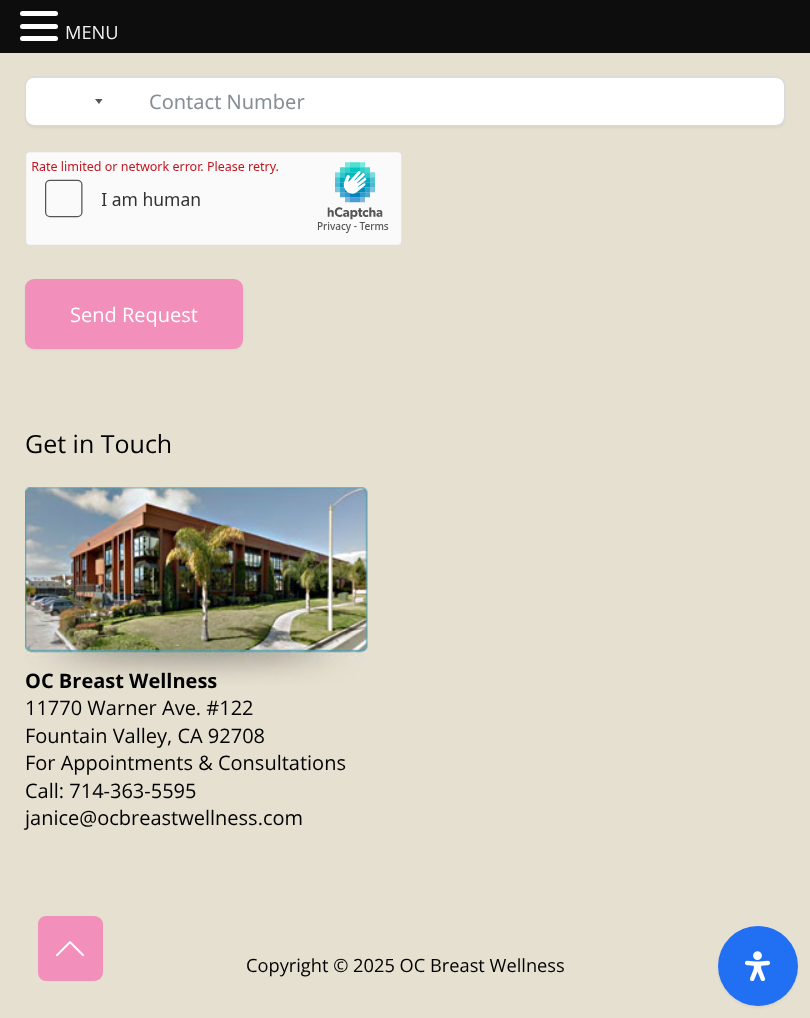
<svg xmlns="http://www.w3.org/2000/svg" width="810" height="1018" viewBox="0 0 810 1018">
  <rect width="100%" height="100%" fill="#e6e0d1"/>
  <path d="M0 0h810v53H0z" fill="#0d0d0d"/>
  <rect x="20" y="11" width="38" height="5" rx="2.5" fill="#fff"/>
  <rect x="20" y="24" width="38" height="5" rx="2.5" fill="#fff"/>
  <rect x="20" y="36" width="38" height="5" rx="2.5" fill="#fff"/>
  <rect x="25" y="78" width="760" height="50" rx="9" fill="#0000000d" filter="blur(1px)"/>
  <rect x="26" y="78" width="758" height="47" rx="8" fill="#fff"/>
  <rect x="25.5" y="76.5" width="759" height="49" rx="8.5" fill="none" stroke="#dadbdd"/>
  <path d="M95 99H102.5L99 104Z" fill="#555"/>
  <image x="25" y="151" width="377" height="95" href="img/1.png"/>
  <rect x="25" y="280" width="218" height="70" rx="9" fill="#0000000d" filter="blur(1px)"/>
  <rect x="25" y="279" width="218" height="70" rx="9" fill="#f290bb"/>
  <image x="25" y="487" width="343" height="198" href="img/2.png"/>
  <path d="M94 981H46C41 981 38 977 38 972V924C38 920 41 916 46 916H94C99 916 103 920 103 924V972C103 977 99 981 94 981Z" fill="#f290bb"/>
  <image x="56" y="941" width="28" height="16" href="img/3.png"/>
  <rect x="718" y="928" width="80" height="80" rx="40" fill="#0000000d" filter="blur(1px)"/>
  <circle cx="758" cy="966" r="40" fill="#216ff3"/>
  <image x="745" y="951" width="25" height="30" href="img/4.png"/>
  <text x="65" y="39" font-family="Open Sans" font-size="18.25" fill="#f2f2f2">MENU</text>
  <text x="149" y="109" font-family="Noto Sans" font-size="20" fill="#868e96">Contact Number</text>
  <text x="70" y="322" font-family="Open Sans" font-size="20" fill="#fff">Send Request</text>
  <text x="25" y="453" font-family="Open Sans" font-size="25" fill="#000">Get in Touch</text>
  <text x="25" y="688" font-family="Open Sans" font-size="20" font-weight="bold" fill="#000">OC Breast Wellness</text>
  <g font-family="Open Sans" font-size="20" fill="#000">
    <text x="25" y="715">11770 Warner Ave. #122</text>
    <text x="25" y="743">Fountain Valley, CA 92708</text>
    <text x="25" y="770">For Appointments &amp; Consultations</text>
    <text x="25" y="798">Call: 714-363-5595</text>
    <text x="25" y="825">janice@ocbreastwellness.com</text>
  </g>
  <text x="246" y="972" font-family="Open Sans" font-size="18.25" fill="#000">Copyright © 2025 OC Breast Wellness</text>
</svg>
